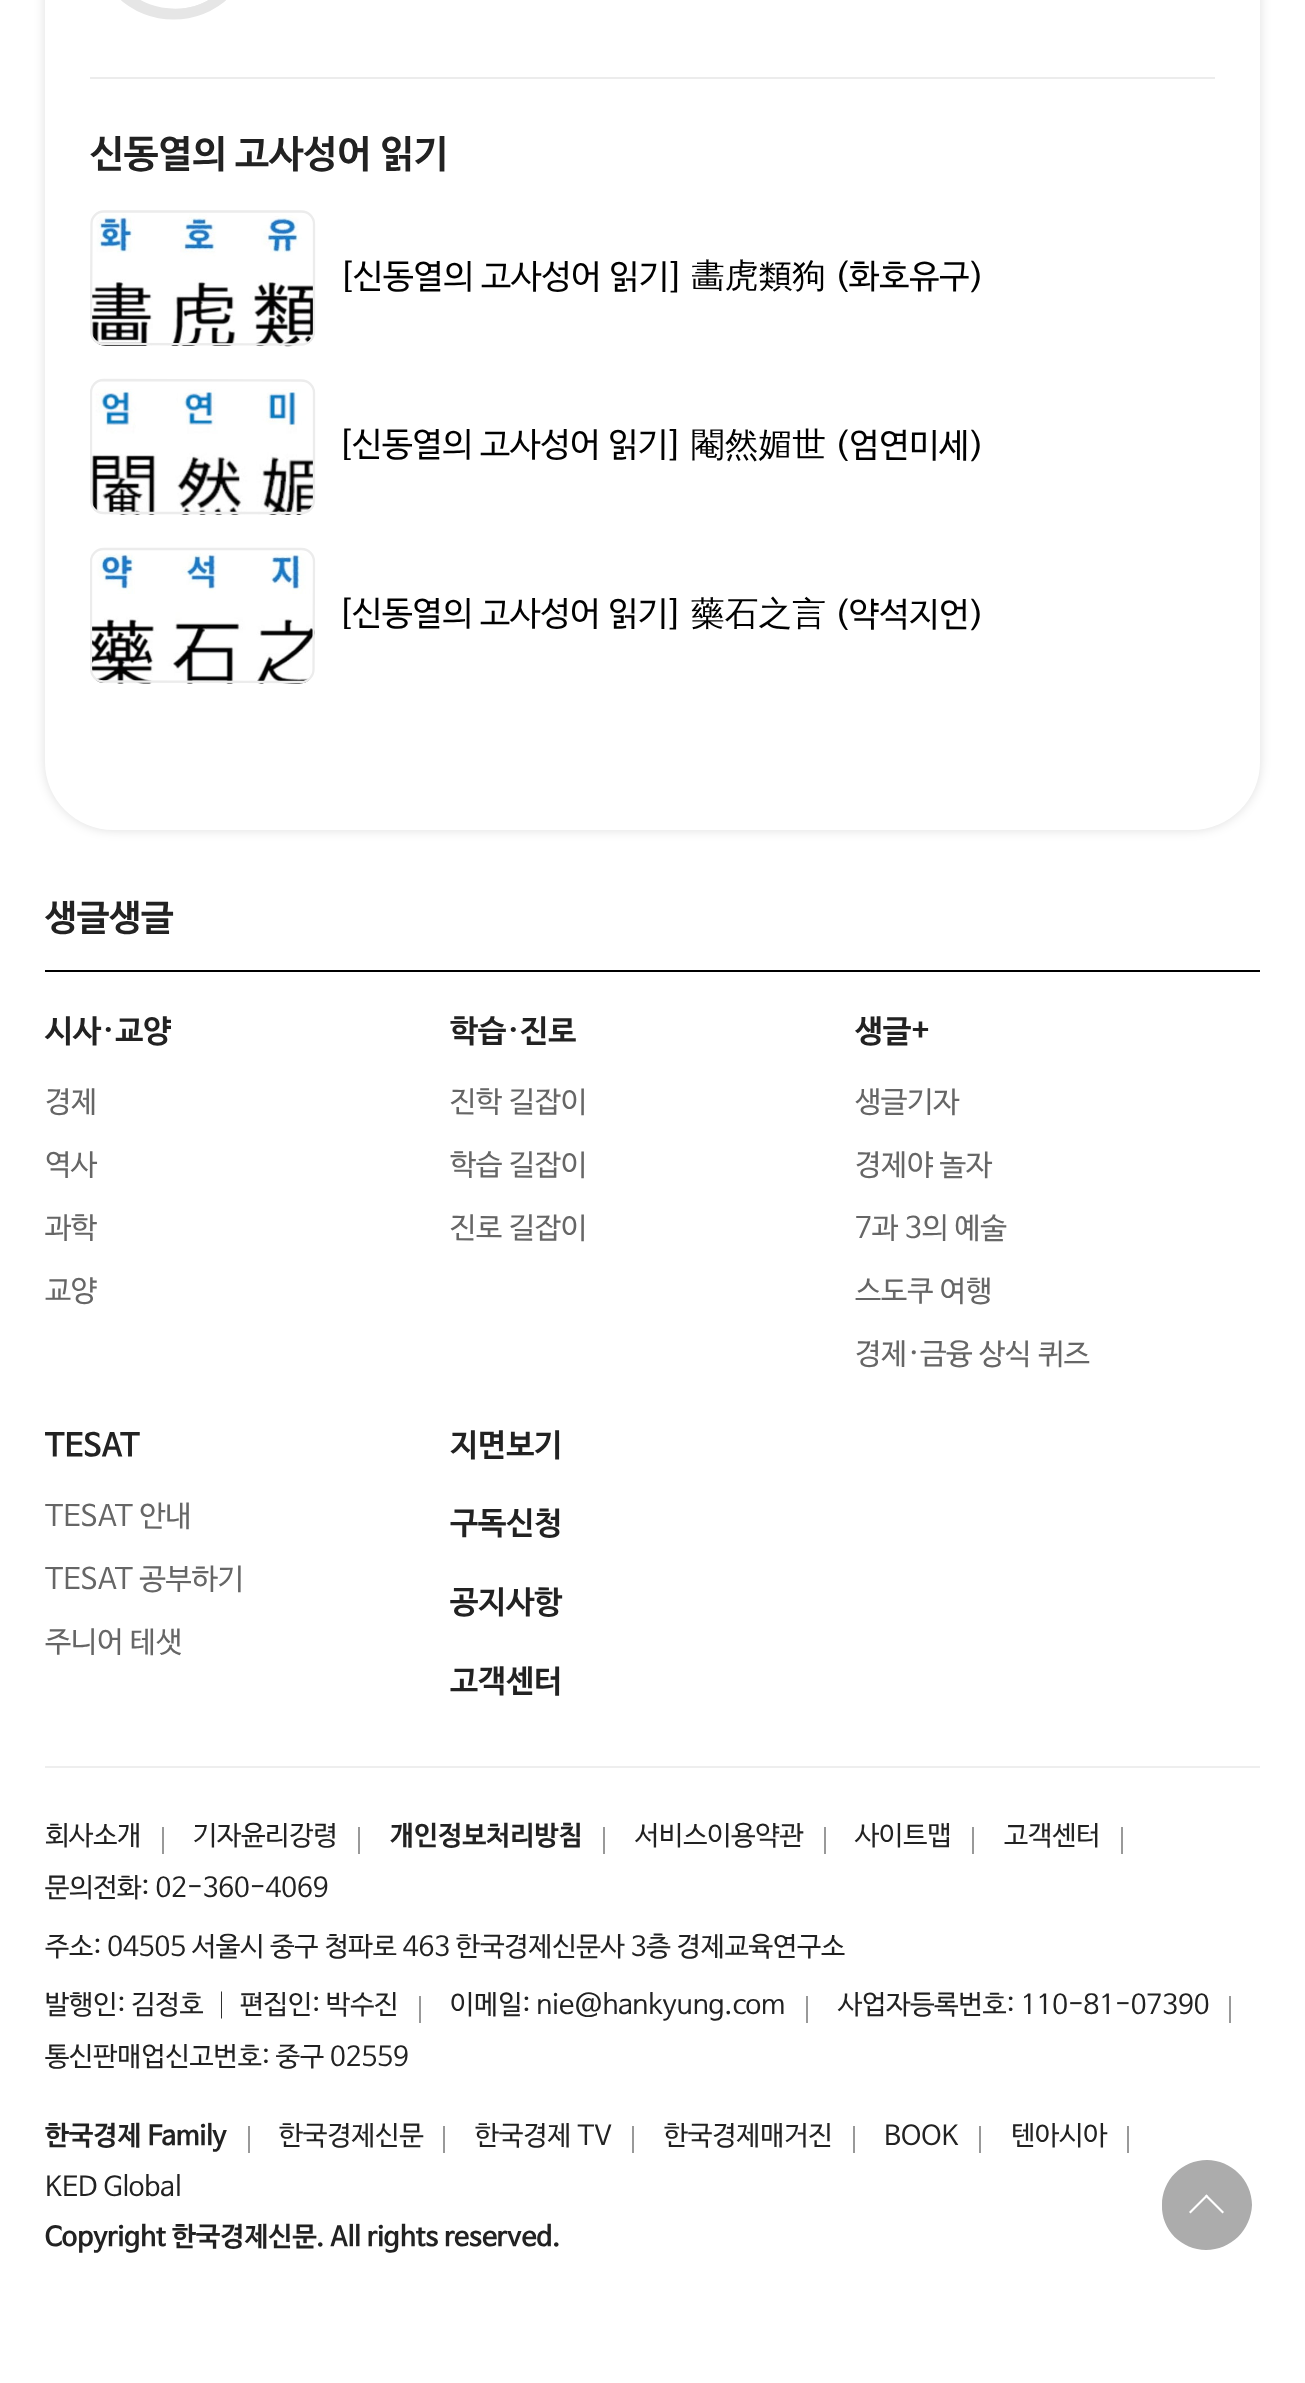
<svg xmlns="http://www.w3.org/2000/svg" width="1305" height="2383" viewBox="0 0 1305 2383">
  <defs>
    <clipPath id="clip1"><path d="M90 0h1125v785H90z"/></clipPath>
  </defs>
  <rect width="100%" height="100%" fill="#fff"/>
  <rect x="45" y="-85" width="1215" height="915" rx="68" fill="#00000021" filter="blur(5.5px)"/>
  <rect x="45" y="-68" width="1215" height="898" rx="68" fill="#fff"/>
  <image x="121" y="0" width="105" height="20" href="img/1.png"/>
  <path d="M90 77h1125v2H90z" fill="#ececec"/>
  <image x="90" y="212" width="225" height="135" href="img/2.png"/>
  <g clip-path="url(#clip1)">
    <path d="M103.5 211.5H301.5C308.5 211.5 314 217 314 224V332C314 338.5 308.5 344.5 301.5 344.5L103.5 344C96.5 344 91 338.5 91 331.5L91.5 223.5C91.5 217 97 211.5 103.5 211.5Z" fill="none" stroke="#ececec" stroke-width="2.3"/>
  </g>
  <image x="91" y="389" width="224" height="126" href="img/3.png"/>
  <g clip-path="url(#clip1)">
    <path d="M103.5 380L301.5 380.5C308.5 380.5 314 386 314 392.5V500.5C314 507.5 308.5 513 301.5 513H103.5C96.5 513 91 507.5 91 500.5V392.5C91 385.5 96.5 380 103.5 380Z" fill="none" stroke="#ececec" stroke-width="2.3"/>
  </g>
  <image x="90" y="553" width="225" height="131" href="img/4.png"/>
  <g clip-path="url(#clip1)">
    <path d="M103.5 549H301.5C308.5 549 314 554.5 314 561.5L313.5 669.5C313.5 676 308 682 301.5 682L103.5 681.5C96.5 681.5 91 676 91 669V561C91 554.5 96.5 549 103.5 549Z" fill="none" stroke="#ececec" stroke-width="2.3"/>
  </g>
  <path d="M1207 2160C1231 2160 1252 2180 1252 2205C1251 2230 1231 2250 1206 2250C1182 2250 1161 2230 1162 2205C1162 2180 1182 2160 1207 2160Z" fill="#acacac"/>
  <path d="M1206.5 2194.5L1224 2212L1222.5 2213.5L1205 2196Z" fill="#fff"/>
  <path d="M1206.5 2194.5L1208 2196L1190.5 2213.5L1189 2212Z" fill="#fff"/>
  <path d="M45 970h1215v2H45z" fill="#000"/>
  <path d="M45 1766h1215v2H45z" fill="#eee"/>
  <path d="M162 1827h2v27H162z" fill="#999"/>
  <path d="M358 1827h2v27H358z" fill="#999"/>
  <path d="M603 1827h2v27H603z" fill="#999"/>
  <path d="M824 1827h2v27H824z" fill="#999"/>
  <path d="M972 1827h2v27H972z" fill="#999"/>
  <path d="M1121 1827h2v27H1121z" fill="#999"/>
  <path d="M419 1996h2v27H419z" fill="#999"/>
  <path d="M806 1996h2v27H806z" fill="#999"/>
  <path d="M1229 1996h2v27H1229z" fill="#999"/>
  <path d="M248 2126h2v27H248z" fill="#999"/>
  <path d="M443 2126h2v27H443z" fill="#999"/>
  <path d="M632 2126h2v27H632z" fill="#999"/>
  <path d="M853 2126h2v27H853z" fill="#999"/>
  <path d="M979 2126h2v27H979z" fill="#999"/>
  <path d="M1127 2126h2v27H1127z" fill="#999"/>
  <text x="90" y="166" font-family="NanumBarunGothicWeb" font-size="38.25" font-weight="bold" fill="#222">신동열의 고사성어 읽기</text>
  <text x="338" y="287" transform="rotate(0.1 338 287)" font-family="NanumBarunGothicWeb" font-size="33.75" fill="#010101">[신동열의 고사성어 읽기]</text>
  <text x="691" y="287" transform="rotate(0.1 691 287)" font-family="WenQuanYi Zen Hei" font-size="33.75" font-weight="500" fill="#010101">畵虎類狗</text>
  <g font-family="NanumBarunGothicWeb" font-size="33.75" fill="#010101">
    <text x="834" y="287" transform="rotate(0.1 834 287)">(화호유구)</text>
    <text x="337" y="455" transform="rotate(0.1 337 455)">[신동열의 고사성어 읽기]</text>
  </g>
  <text x="691" y="456" transform="rotate(0.1 691 456)" font-family="WenQuanYi Zen Hei" font-size="33.75" font-weight="500" fill="#010101">閹然媚世</text>
  <g font-family="NanumBarunGothicWeb" font-size="33.75" fill="#010101">
    <text x="834" y="456" transform="rotate(0.1 834 456)">(엄연미세)</text>
    <text x="337" y="624" transform="rotate(0.1 337 624)">[신동열의 고사성어 읽기]</text>
  </g>
  <text x="691" y="625" transform="rotate(0.1 691 625)" font-family="WenQuanYi Zen Hei" font-size="33.75" font-weight="500" fill="#010101">藥石之言</text>
  <text x="834" y="625" transform="rotate(0.1 834 625)" font-family="NanumBarunGothicWeb" font-size="33.75" fill="#010101">(약석지언)</text>
  <text x="45" y="929" font-family="NanumBarunGothicWeb" font-size="36" font-weight="bold" fill="#222">생글생글</text>
  <text x="45" y="1041" font-family="NanumBarunGothicWeb" font-size="31.5" font-weight="bold" fill="#222">시사·교양</text>
  <g font-family="NanumBarunGothicWeb" font-size="29.25" fill="#666">
    <text x="45" y="1111" transform="rotate(0.1 45 1111)">경제</text>
    <text x="45" y="1174" transform="rotate(0.1 45 1174)">역사</text>
    <text x="45" y="1237" transform="rotate(0.1 45 1237)">과학</text>
    <text x="45" y="1300" transform="rotate(0.1 45 1300)">교양</text>
  </g>
  <text x="450" y="1041" font-family="NanumBarunGothicWeb" font-size="31.5" font-weight="bold" fill="#222">학습·진로</text>
  <g font-family="NanumBarunGothicWeb" font-size="29.25" fill="#666">
    <text x="450" y="1111" transform="rotate(0.1 450 1111)">진학 길잡이</text>
    <text x="450" y="1174" transform="rotate(0.1 450 1174)">학습 길잡이</text>
    <text x="450" y="1237" transform="rotate(0.1 450 1237)">진로 길잡이</text>
  </g>
  <text x="855" y="1041" font-family="NanumBarunGothicWeb" font-size="31.5" font-weight="bold" fill="#222">생글+</text>
  <g font-family="NanumBarunGothicWeb" font-size="29.25" fill="#666">
    <text x="855" y="1111" transform="rotate(0.1 855 1111)">생글기자</text>
    <text x="855" y="1174" transform="rotate(0.1 855 1174)">경제야 놀자</text>
    <text x="855" y="1237" transform="rotate(0.1 855 1237)">7과 3의 예술</text>
    <text x="855" y="1300" transform="rotate(0.1 855 1300)">스도쿠 여행</text>
    <text x="855" y="1363" transform="rotate(0.1 855 1363)">경제·금융 상식 퀴즈</text>
  </g>
  <text x="45" y="1455" font-family="NanumBarunGothicWeb" font-size="31.5" font-weight="bold" fill="#222">TESAT</text>
  <g font-family="NanumBarunGothicWeb" font-size="29.25" fill="#666">
    <text x="45" y="1525" transform="rotate(0.1 45 1525)">TESAT 안내</text>
    <text x="45" y="1588" transform="rotate(0.1 45 1588)">TESAT 공부하기</text>
    <text x="45" y="1651" transform="rotate(0.1 45 1651)">주니어 테샛</text>
  </g>
  <g font-family="NanumBarunGothicWeb" font-size="31.5" font-weight="bold" fill="#222">
    <text x="450" y="1455">지면보기</text>
    <text x="450" y="1533" transform="rotate(0.1 450 1533)">구독신청</text>
    <text x="450" y="1612" transform="rotate(0.1 450 1612)">공지사항</text>
    <text x="450" y="1691" transform="rotate(0.1 450 1691)">고객센터</text>
  </g>
  <g font-family="NanumBarunGothicWeb" font-size="27" fill="#222">
    <text x="45" y="1844">회사소개</text>
    <text x="193" y="1844">기자윤리강령</text>
  </g>
  <text x="390" y="1844" font-family="NanumBarunGothicWeb" font-size="27" font-weight="bold" fill="#222">개인정보처리방침</text>
  <g font-family="NanumBarunGothicWeb" font-size="27" fill="#222">
    <text x="635" y="1844">서비스이용약관</text>
    <text x="855" y="1844">사이트맵</text>
    <text x="1004" y="1844">고객센터</text>
    <text x="45" y="1896">문의전화: 02-360-4069</text>
    <text x="45" y="1955">주소: 04505 서울시 중구 청파로 463 한국경제신문사 3층 경제교육연구소</text>
    <text x="45" y="2013">발행인: 김정호 │ 편집인: 박수진</text>
    <text x="450" y="2013">이메일: nie@hankyung.com</text>
    <text x="838" y="2013">사업자등록번호: 110-81-07390</text>
    <text x="45" y="2065">통신판매업신고번호: 중구 02559</text>
  </g>
  <text x="45" y="2144" font-family="NanumBarunGothicWeb" font-size="27" font-weight="bold" fill="#222">한국경제 Family</text>
  <g font-family="NanumBarunGothicWeb" font-size="27" fill="#222">
    <text x="279" y="2144">한국경제신문</text>
    <text x="475" y="2144">한국경제 TV</text>
    <text x="664" y="2144">한국경제매거진</text>
    <text x="884" y="2144">BOOK</text>
    <text x="1011" y="2144">텐아시아</text>
    <text x="45" y="2195">KED Global</text>
  </g>
  <text x="45" y="2245" font-family="NanumBarunGothicWeb" font-size="27" font-weight="bold" fill="#222">Copyright 한국경제신문. All rights reserved.</text>
</svg>
